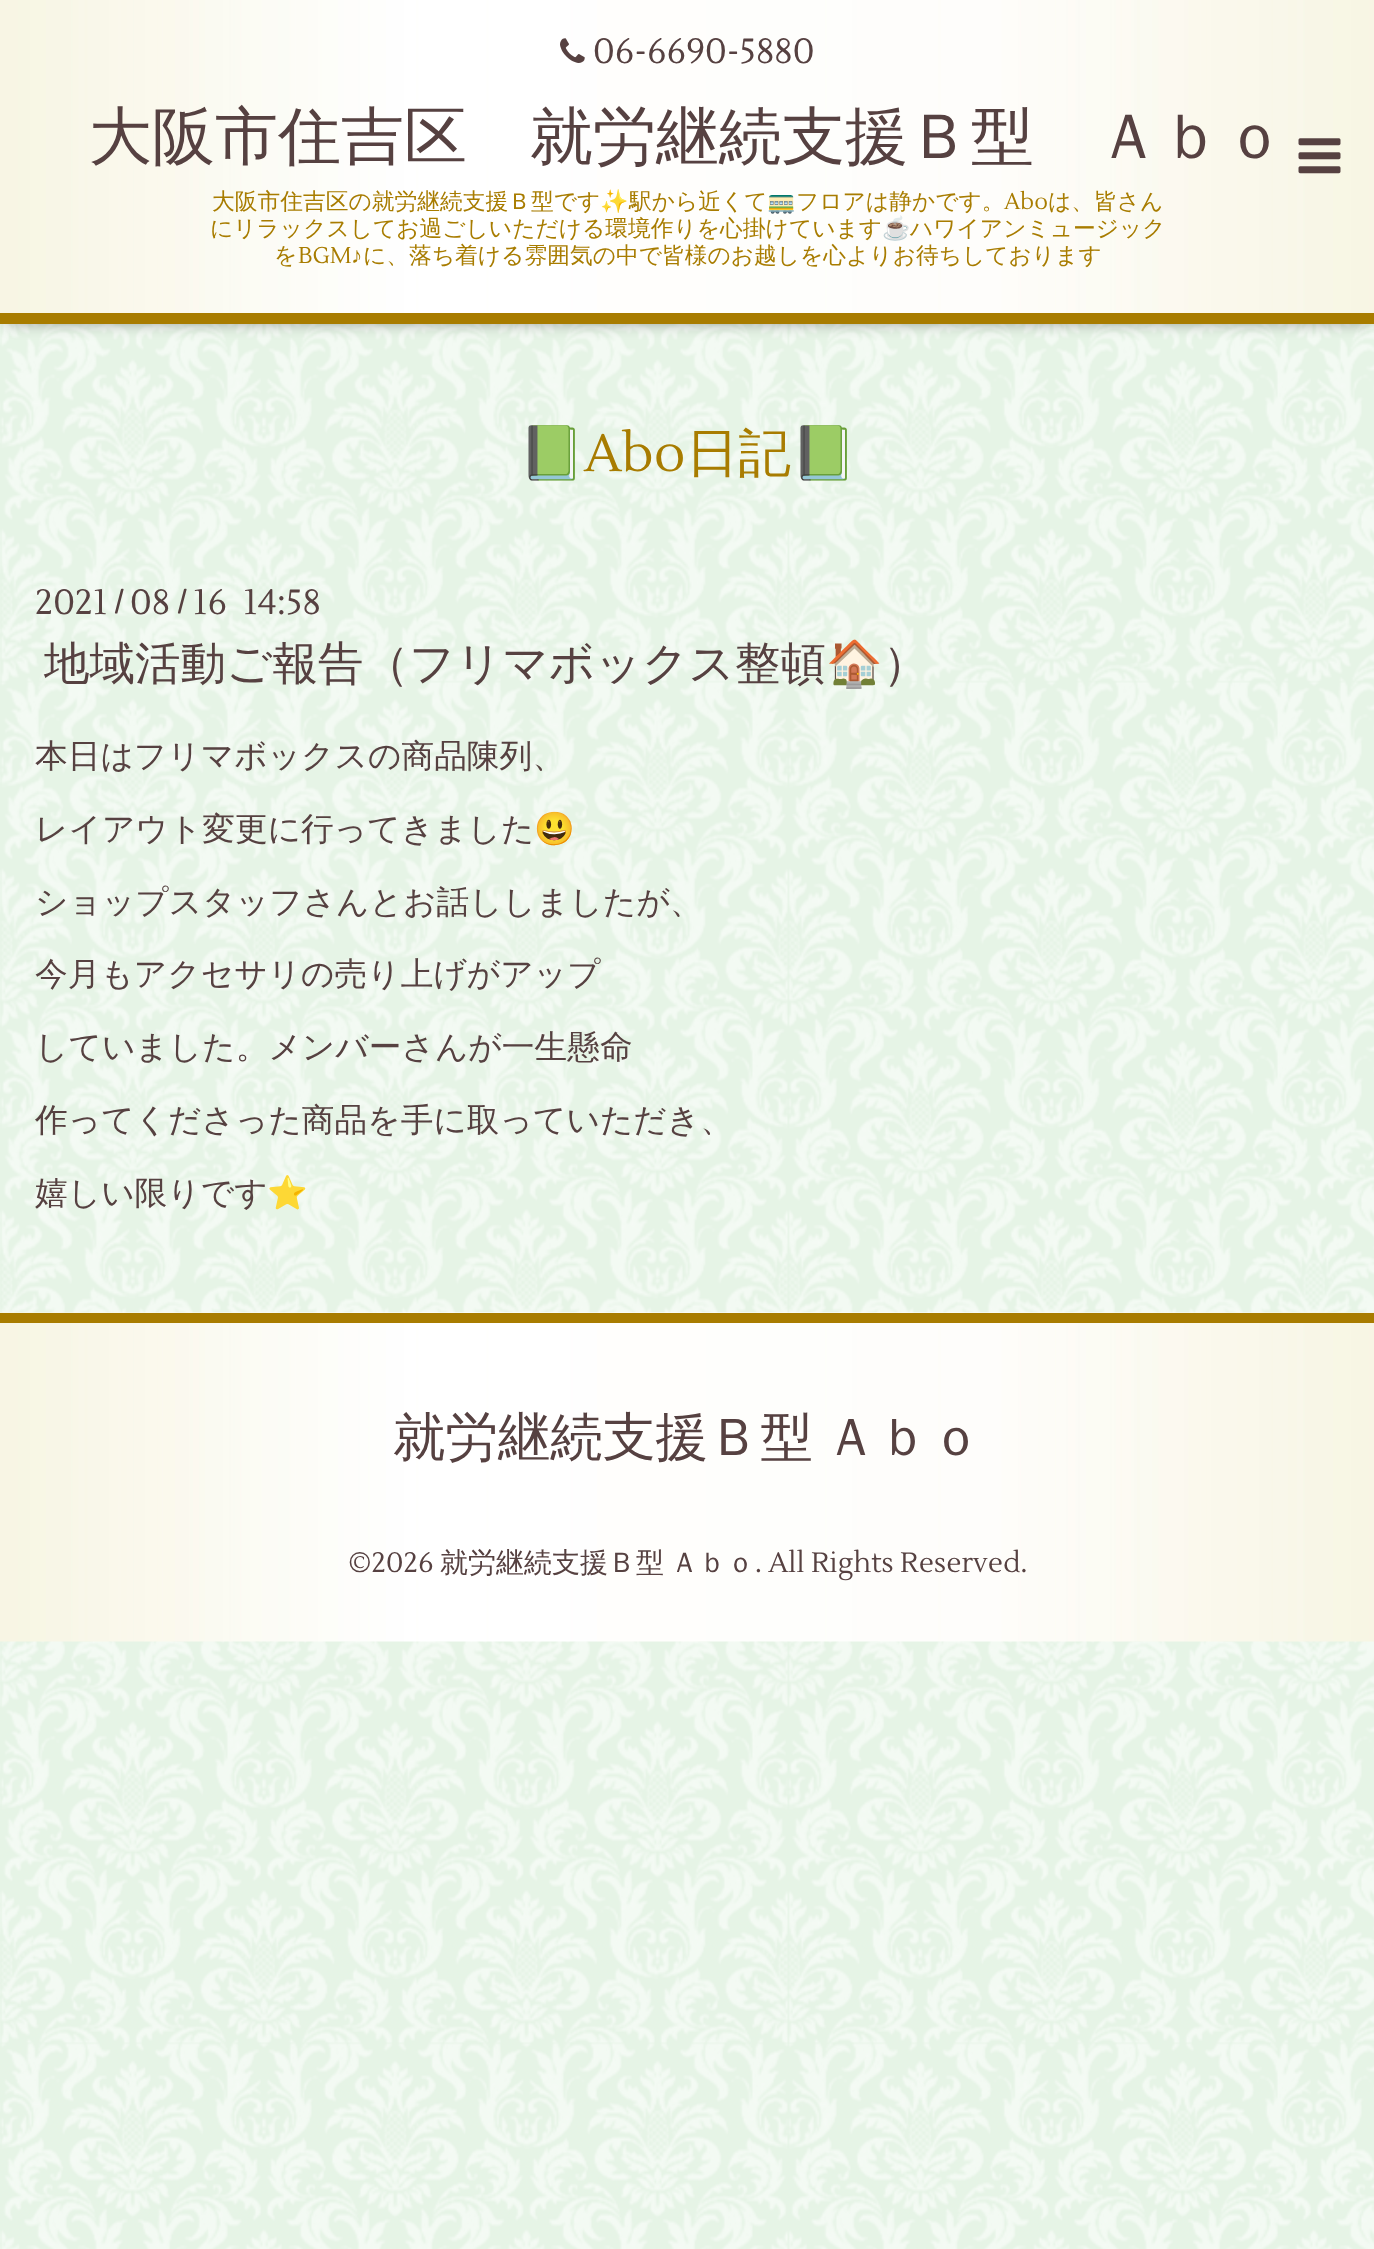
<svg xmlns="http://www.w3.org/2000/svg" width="1374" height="2249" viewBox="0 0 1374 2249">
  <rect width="100%" height="100%" fill="#e6f4e6"/>
  <image x="0" y="324" width="1374" height="1925" href="img/1.png"/>
  <path d="M7 9h1362v310H7z" fill="#00000099" filter="blur(9px)"/>
  <image x="0" y="0" width="1374" height="313" href="img/2.png"/>
  <path d="M0 313h1374v11H0z" fill="#a87c00"/>
  <image x="560" y="38" width="25" height="25" href="img/3.png"/>
  <image x="1298" y="138" width="43" height="36" href="img/4.png"/>
  <image x="0" y="1312" width="1374" height="330" href="img/5.png"/>
  <path d="M0 1313h1374v10H0z" fill="#a87c00"/>
  <text x="593" y="63" font-family="Lustria" font-size="35" fill="#564141">06-6690-5880</text>
  <text x="89" y="158" font-family="WenQuanYi Zen Hei" font-size="63" font-weight="500" fill="#564141">大阪市住吉区　就労継続支援Ｂ型　Ａｂｏ</text>
  <text x="212" y="209" font-family="WenQuanYi Zen Hei" font-size="22.75" font-weight="500" fill="#a87c00">大阪市住吉区の就労継続支援Ｂ型です</text>
  <text x="600" y="209" font-family="Noto Color Emoji" font-size="22.75" fill="#a87c00">✨</text>
  <text x="629" y="209" font-family="WenQuanYi Zen Hei" font-size="22.75" font-weight="500" fill="#a87c00">駅から近くて</text>
  <text x="767" y="209" font-family="Noto Color Emoji" font-size="22.75" fill="#a87c00">🚃</text>
  <text x="796" y="209" font-family="WenQuanYi Zen Hei" font-size="22.75" font-weight="500" fill="#a87c00">フロアは静かです。</text>
  <text x="1004" y="209" font-family="Lustria" font-size="22.75" fill="#a87c00">Abo</text>
  <g font-family="WenQuanYi Zen Hei" font-size="22.75" font-weight="500" fill="#a87c00">
    <text x="1048" y="209">は、皆さん</text>
    <text x="210" y="236">にリラックスしてお過ごしいただける環境作りを心掛けています</text>
  </g>
  <text x="882" y="236" font-family="Noto Color Emoji" font-size="22.75" fill="#a87c00">☕</text>
  <g font-family="WenQuanYi Zen Hei" font-size="22.75" font-weight="500" fill="#a87c00">
    <text x="910" y="236">ハワイアンミュージック</text>
    <text x="274" y="263">を</text>
  </g>
  <text x="298" y="263" font-family="Lustria" font-size="22.75" fill="#a87c00">BGM</text>
  <text x="351" y="263" font-family="Liberation Sans" font-size="22.75" fill="#a87c00">♪</text>
  <text x="363" y="263" font-family="WenQuanYi Zen Hei" font-size="22.75" font-weight="500" fill="#a87c00">に、落ち着ける雰囲気の中で皆様のお越しを心よりお待ちしております</text>
  <text x="519" y="471" font-family="Noto Color Emoji" font-size="52.5" fill="#a87c00">📗</text>
  <text x="584" y="471" font-family="Lustria" font-size="52.5" fill="#a87c00">Abo</text>
  <text x="686" y="471" font-family="WenQuanYi Zen Hei" font-size="52.5" font-weight="500" fill="#a87c00">日記</text>
  <text x="791" y="471" font-family="Noto Color Emoji" font-size="52.5" fill="#a87c00">📗</text>
  <text x="35" y="614" font-family="Lustria" font-size="35" fill="#564141">2021</text>
  <text x="114" y="611" font-family="Lustria" font-size="28" font-weight="bold" fill="#564141">/</text>
  <text x="130" y="614" font-family="Lustria" font-size="35" fill="#564141">08</text>
  <text x="177" y="611" font-family="Lustria" font-size="28" font-weight="bold" fill="#564141">/</text>
  <text x="193" y="614" font-family="Lustria" font-size="35" fill="#564141" xml:space="preserve">16  14:58</text>
  <text x="44" y="679" font-family="WenQuanYi Zen Hei" font-size="45.5" font-weight="500" fill="#564141">地域活動ご報告（フリマボックス整頓</text>
  <text x="826" y="679" font-family="Noto Color Emoji" font-size="45.5" fill="#564141">🏠</text>
  <text x="883" y="679" font-family="WenQuanYi Zen Hei" font-size="45.5" font-weight="500" fill="#564141">）</text>
  <g font-family="WenQuanYi Zen Hei" font-size="32.7" font-weight="500" fill="#564141">
    <text x="35" y="767">本日はフリマボックスの商品陳列、</text>
    <text x="35" y="840">レイアウト変更に行ってきました</text>
  </g>
  <text x="534" y="840" font-family="Noto Color Emoji" font-size="32.7" fill="#564141">😃</text>
  <g font-family="WenQuanYi Zen Hei" font-size="32.7" font-weight="500" fill="#564141">
    <text x="35" y="913">ショップスタッフさんとお話ししましたが、</text>
    <text x="35" y="985">今月もアクセサリの売り上げがアップ</text>
    <text x="35" y="1058">していました。メンバーさんが一生懸命</text>
    <text x="35" y="1131">作ってくださった商品を手に取っていただき、</text>
    <text x="35" y="1204">嬉しい限りです</text>
  </g>
  <text x="267" y="1204" font-family="Noto Color Emoji" font-size="32.7" fill="#564141">⭐</text>
  <text x="393" y="1455" word-spacing="-4" font-family="WenQuanYi Zen Hei" font-size="52.5" font-weight="500" fill="#564141">就労継続支援Ｂ型 Ａｂｏ</text>
  <text x="348" y="1572" font-family="Lustria" font-size="28" fill="#564141">©2026</text>
  <text x="440" y="1572" word-spacing="-2" font-family="WenQuanYi Zen Hei" font-size="28" font-weight="500" fill="#564141">就労継続支援Ｂ型 Ａｂｏ</text>
  <text x="755" y="1572" font-family="Lustria" font-size="28" fill="#564141">. All Rights Reserved.</text>
</svg>
